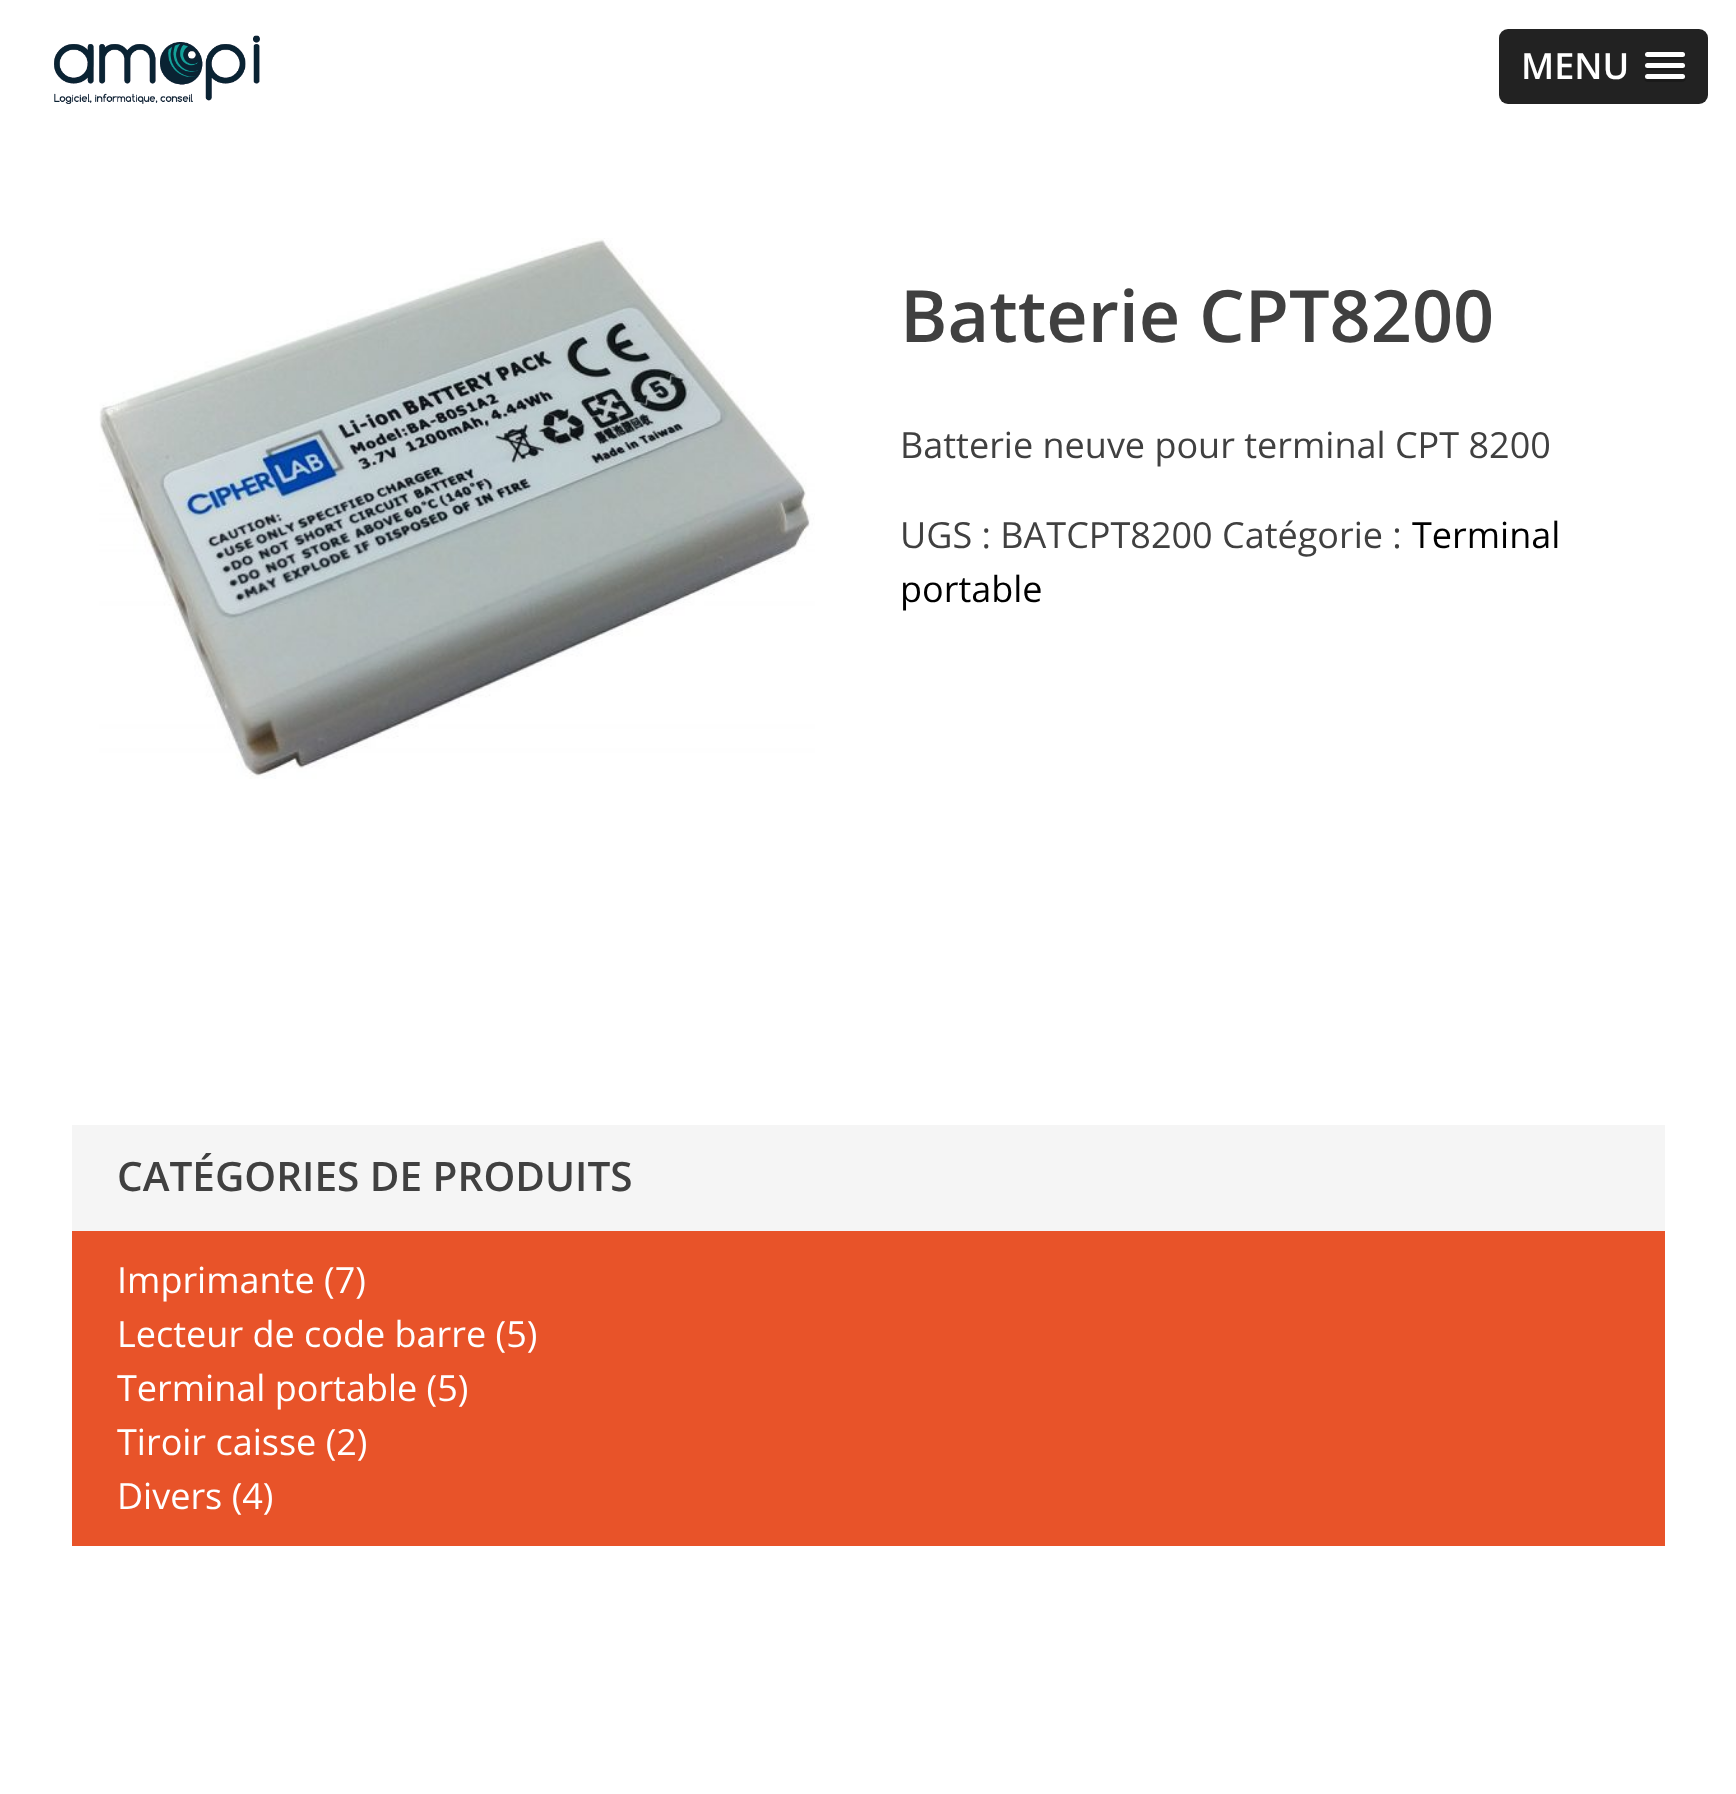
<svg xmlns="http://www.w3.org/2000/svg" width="1736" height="1794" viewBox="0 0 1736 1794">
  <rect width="100%" height="100%" fill="#fff"/>
  <image x="54" y="35" width="206" height="69" href="img/1.png"/>
  <rect x="1499" y="29" width="209" height="75" rx="9" fill="#222"/>
  <path d="M1645 55C1643 60 1652 59 1653 59H1677C1678 59 1687 60 1685 55L1683 56H1647Z" fill="#1a1a1a"/>
  <rect x="1645" y="52" width="40" height="5" rx="2.5" fill="#fff"/>
  <path d="M1645 67C1643 71 1652 70 1653 70H1677C1678 70 1687 71 1685 67H1683H1647Z" fill="#1a1a1a"/>
  <rect x="1645" y="63" width="40" height="5" rx="2.5" fill="#fff"/>
  <path d="M1645 78C1642 83 1653 82 1653 82H1677C1677 82 1688 83 1685 78C1683 79 1647 79 1645 78Z" fill="#1a1a1a"/>
  <rect x="1645" y="74" width="40" height="5" rx="2.5" fill="#fff"/>
  <image x="99" y="238" width="716" height="541" href="img/2.png"/>
  <path d="M72 1125h1593v106H72z" fill="#f5f5f5"/>
  <path d="M72 1231h1593v315H72z" fill="#e85329"/>
  <text x="1521" y="79" font-family="Open Sans" font-size="36" font-weight="600" fill="#fff">MENU</text>
  <text x="900" y="342" font-family="Open Sans" font-size="72" font-weight="600" fill="#404040">Batterie CPT8200</text>
  <g font-family="Open Sans" font-size="36" fill="#404040">
    <text x="900" y="458">Batterie neuve pour terminal CPT 8200</text>
    <text x="900" y="548">UGS : BATCPT8200 Catégorie :</text>
  </g>
  <g font-family="Open Sans" font-size="36" fill="#000">
    <text x="1412" y="548">Terminal</text>
    <text x="900" y="602">portable</text>
  </g>
  <text x="117" y="1191" font-family="Open Sans" font-size="40.5" font-weight="600" fill="#404040">CATÉGORIES DE PRODUITS</text>
  <g font-family="Open Sans" font-size="36" fill="#fff">
    <text x="117" y="1293">Imprimante (7)</text>
    <text x="117" y="1347">Lecteur de code barre (5)</text>
    <text x="117" y="1401">Terminal portable (5)</text>
    <text x="117" y="1455">Tiroir caisse (2)</text>
    <text x="117" y="1509">Divers (4)</text>
  </g>
</svg>
